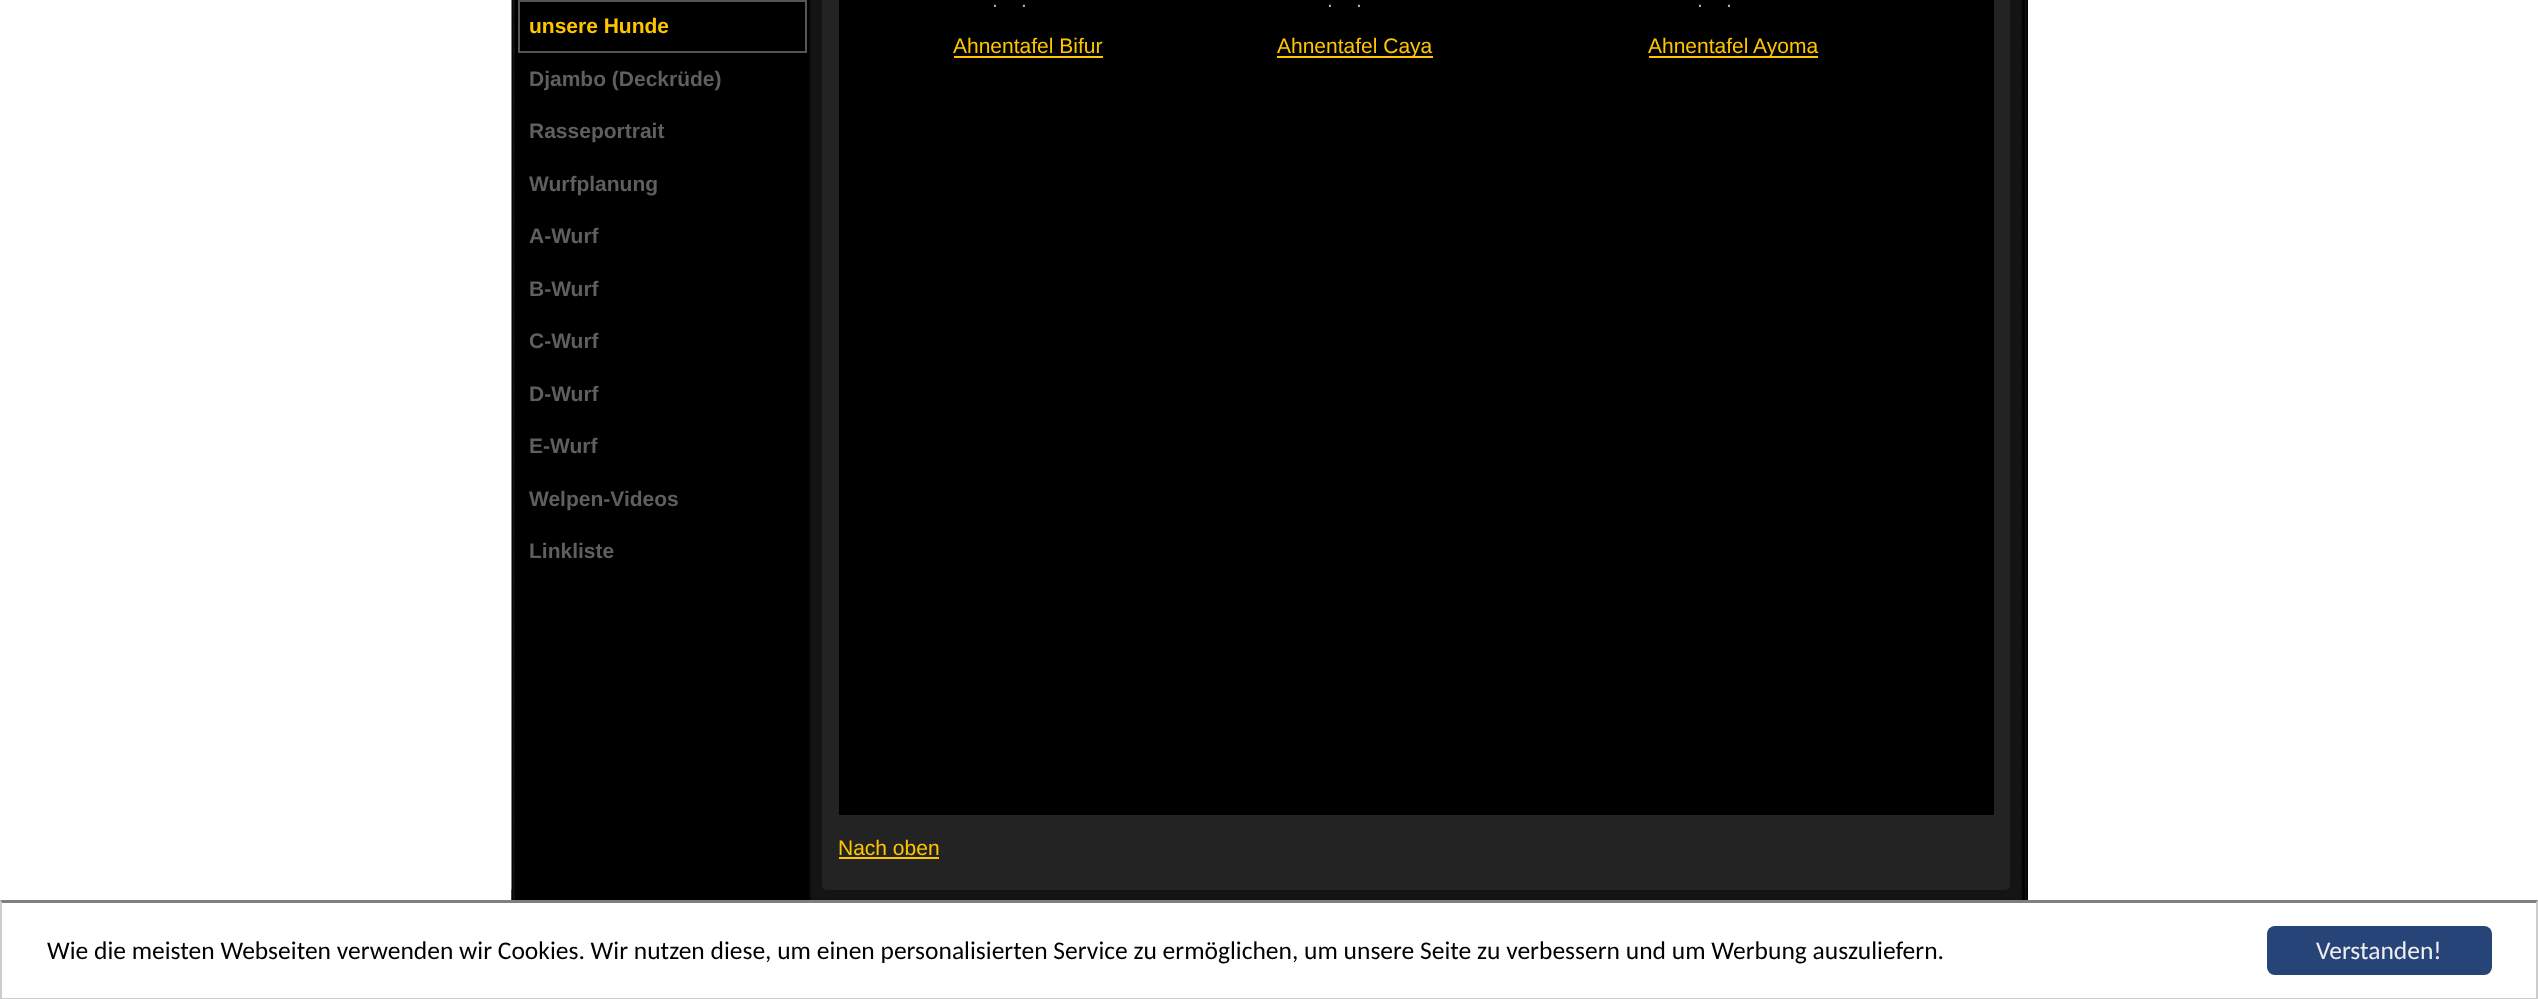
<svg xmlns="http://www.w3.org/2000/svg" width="2538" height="999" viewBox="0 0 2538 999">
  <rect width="100%" height="100%" fill="#fff"/>
  <image x="511" y="0" width="1517" height="900" href="img/1.png"/>
  <path d="M519 1h287v51H519z" fill="none" stroke="#555" stroke-width="2"/>
  <image x="511" y="889" width="1517" height="11" href="img/2.png"/>
  <rect x="822" y="-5" width="1188" height="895" rx="5" fill="#232323"/>
  <path d="M839 0h1155v815H839z" fill="#000"/>
  <path d="M954 56h149v2H954z" fill="#ffc600"/>
  <path d="M1277 56h156v2H1277z" fill="#ffc600"/>
  <path d="M1649 56h169v2H1649z" fill="#ffc600"/>
  <path d="M839 857h100v2H839z" fill="#ffc600"/>
  <path d="M0 900H2538L2536 903H2Z" fill="#808080"/>
  <path d="M2538 900V999L2536 998V903Z" fill="#ccc"/>
  <path d="M0 998h2538v1H0z" fill="#ccc"/>
  <path d="M0 999V900L2 903V998Z" fill="#ccc"/>
  <rect x="2267" y="926" width="225" height="49" rx="8" fill="#274479"/>
  <text x="529" y="33" font-family="Liberation Sans" font-size="21" font-weight="bold" fill="#ffc600">unsere Hunde</text>
  <g font-family="Liberation Sans" font-size="21" font-weight="bold" fill="#5f5f5f">
    <text x="529" y="86">Djambo (Deckrüde)</text>
    <text x="529" y="138">Rasseportrait</text>
    <text x="529" y="191">Wurfplanung</text>
    <text x="529" y="243">A-Wurf</text>
    <text x="529" y="296">B-Wurf</text>
    <text x="529" y="348">C-Wurf</text>
    <text x="529" y="401">D-Wurf</text>
    <text x="529" y="453">E-Wurf</text>
    <text x="529" y="506">Welpen-Videos</text>
    <text x="529" y="558">Linkliste</text>
  </g>
  <g font-family="Liberation Sans" font-size="21" fill="#b2b2b2">
    <text x="992" y="7">.</text>
    <text x="1021" y="7">.</text>
    <text x="1327" y="7">.</text>
    <text x="1356" y="7">.</text>
    <text x="1697" y="7">.</text>
    <text x="1726" y="7">.</text>
  </g>
  <g font-family="Liberation Sans" font-size="21" fill="#ffc600">
    <text x="953" y="53">Ahnentafel Bifur</text>
    <text x="1277" y="53">Ahnentafel Caya</text>
    <text x="1648" y="53">Ahnentafel Ayoma</text>
    <text x="838" y="855">Nach oben</text>
  </g>
  <text x="47" y="959" font-family="Carlito" font-size="25.5" fill="#000">Wie die meisten Webseiten verwenden wir Cookies. Wir nutzen diese, um einen personalisierten Service zu ermöglichen, um unsere Seite zu verbessern und um Werbung auszuliefern.</text>
  <text x="2316" y="959" font-family="Carlito" font-size="25.5" fill="#eee">Verstanden!</text>
</svg>
